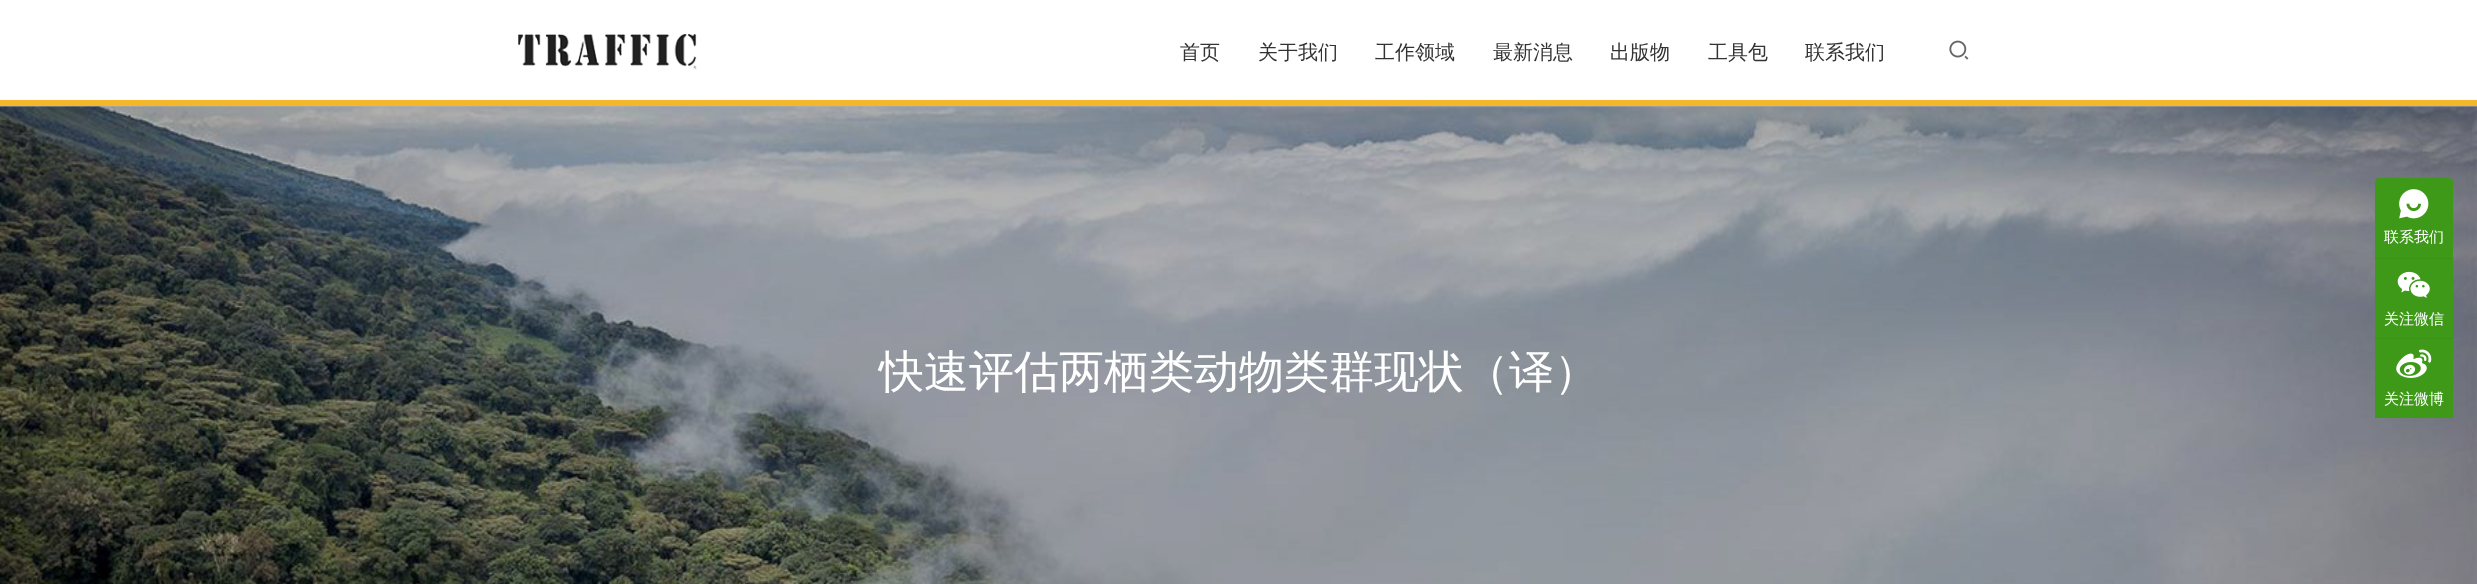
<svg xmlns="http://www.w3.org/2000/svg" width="2477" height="584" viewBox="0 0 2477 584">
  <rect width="100%" height="100%" fill="#fff"/>
  <path d="M0 106h2477v1H0z" fill="#b3b3b3"/>
  <image x="518" y="34" width="179" height="36" href="img/1.png"/>
  <image x="1949" y="40" width="20" height="20" href="img/2.png"/>
  <path d="M0 100h2477v6H0z" fill="#f4b72b"/>
  <image x="0" y="106" width="2477" height="478" href="img/3.png"/>
  <path d="M2379 178H2449C2451 178 2453 180 2453 182V258H2375V182C2375 180 2377 178 2379 178Z" fill="#3d9917"/>
  <image x="2399" y="189" width="30" height="30" href="img/4.png"/>
  <path d="M2375 259h78v79H2375z" fill="#3d9917"/>
  <path d="M2375 258h78v1H2375z" fill="#3a9116"/>
  <image x="2397" y="271" width="33" height="27" href="img/5.png"/>
  <path d="M2375 339h78v79H2375z" fill="#3d9917"/>
  <path d="M2375 338h78v1H2375z" fill="#3a9116"/>
  <image x="2396" y="349" width="36" height="29" href="img/6.png"/>
  <g font-family="WenQuanYi Zen Hei" font-size="20" font-weight="500" fill="#333">
    <text x="1180" y="59">首页</text>
    <text x="1258" y="59">关于我们</text>
    <text x="1375" y="59">工作领域</text>
    <text x="1493" y="59">最新消息</text>
    <text x="1610" y="59">出版物</text>
    <text x="1708" y="59">工具包</text>
    <text x="1805" y="59">联系我们</text>
  </g>
  <text x="879" y="387" font-family="WenQuanYi Zen Hei" font-size="45" font-weight="500" fill="#fff">快速评估两栖类动物类群现状（译）</text>
  <g font-family="WenQuanYi Zen Hei" font-size="15" font-weight="500" fill="#fff">
    <text x="2384" y="242">联系我们</text>
    <text x="2384" y="324">关注微信</text>
    <text x="2384" y="404">关注微博</text>
  </g>
</svg>
